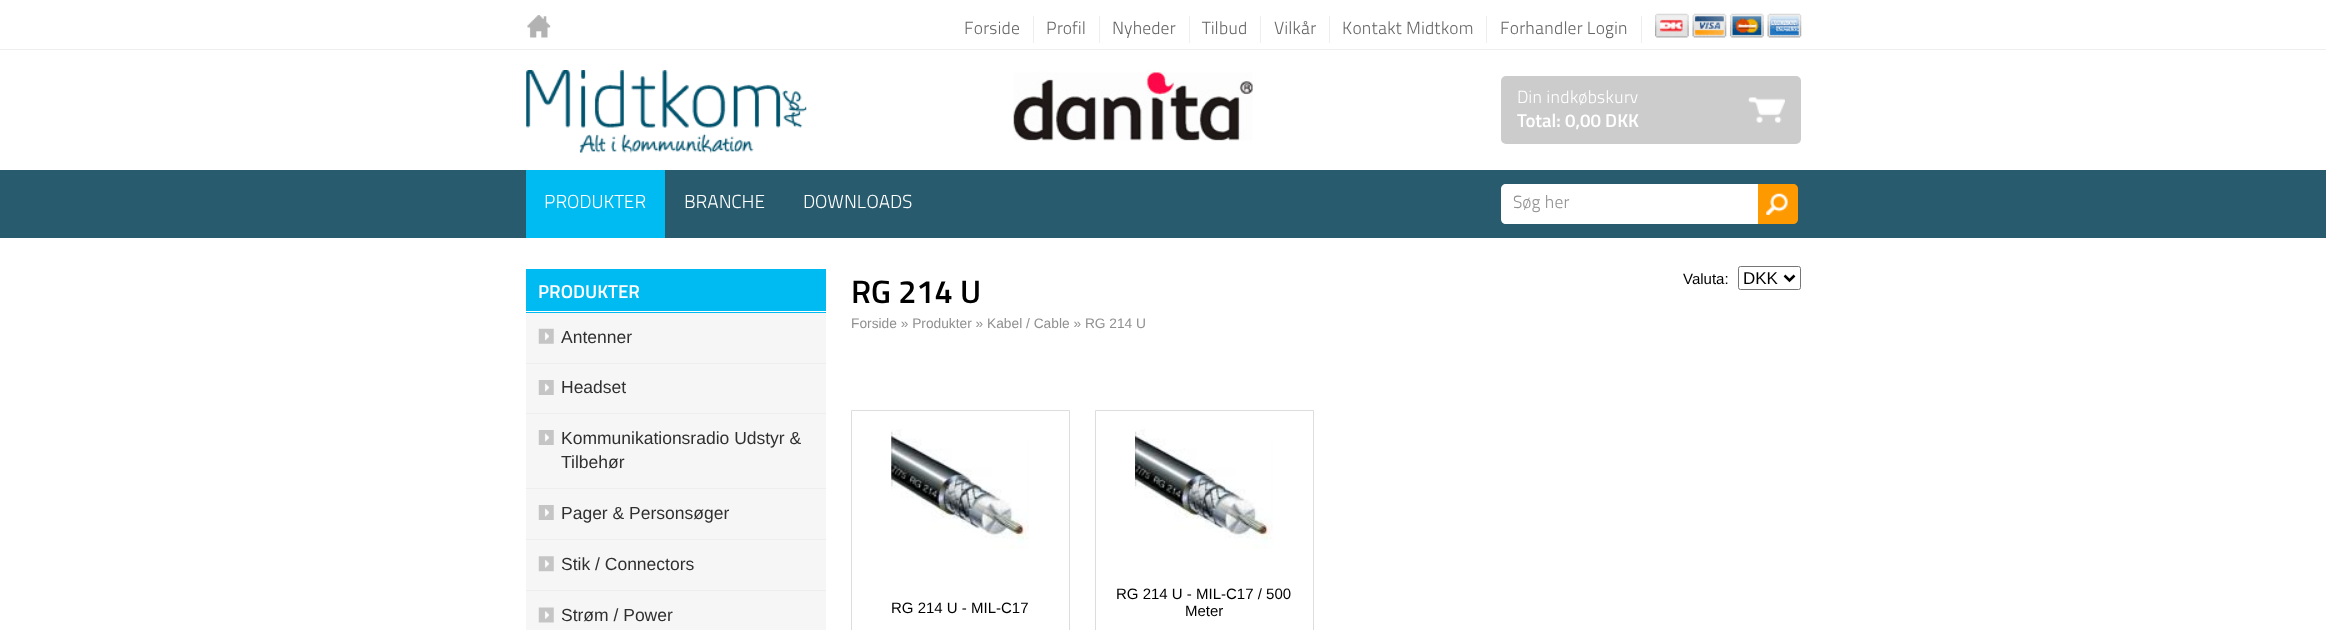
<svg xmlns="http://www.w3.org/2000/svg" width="2326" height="630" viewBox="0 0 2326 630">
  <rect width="100%" height="100%" fill="#fff"/>
  <path d="M0 49h2326v1H0z" fill="#eee"/>
  <image x="527" y="15" width="24" height="23" href="img/1.png"/>
  <path d="M1033 16h1v27H1033z" fill="#eee"/>
  <path d="M1099 16h1v27H1099z" fill="#eee"/>
  <path d="M1189 16h1v27H1189z" fill="#eee"/>
  <path d="M1260 16h1v27H1260z" fill="#eee"/>
  <path d="M1329 16h1v27H1329z" fill="#eee"/>
  <path d="M1486 16h1v27H1486z" fill="#eee"/>
  <path d="M1641 16h1v27H1641z" fill="#eee"/>
  <image x="1655" y="13" width="147" height="25" href="img/2.png"/>
  <image x="526" y="70" width="281" height="83" href="img/3.png"/>
  <image x="1013" y="70" width="240" height="71" href="img/4.png"/>
  <rect x="1501" y="76" width="300" height="68" rx="5" fill="#ccc"/>
  <image x="1748" y="97" width="37" height="26" href="img/5.png"/>
  <path d="M0 170h2326v68H0z" fill="#295b6e"/>
  <path d="M526 170h139v68H526z" fill="#00baf2"/>
  <path d="M1506 184H1761V224H1506C1503 224 1501 222 1501 219V189C1501 186 1503 184 1506 184Z" fill="#fff"/>
  <path d="M1758 184H1793C1796 184 1798 186 1798 189V219C1798 222 1796 224 1793 224H1758Z" fill="#f90"/>
  <image x="1766" y="193" width="22" height="22" href="img/6.png"/>
  <path d="M526 269h300v44H526z" fill="#00baf2"/>
  <path d="M526 311h300v1H526z" fill="#fff"/>
  <path d="M526 313h300v317H526z" fill="#f6f6f6"/>
  <path d="M526 363h300v1H526z" fill="#eee"/>
  <image x="538" y="328" width="16" height="16" href="img/7.png"/>
  <path d="M526 413h300v1H526z" fill="#eee"/>
  <image x="538" y="380" width="16" height="15" href="img/8.png"/>
  <path d="M526 488h300v1H526z" fill="#eee"/>
  <image x="538" y="430" width="16" height="15" href="img/8.png"/>
  <path d="M526 539h300v1H526z" fill="#eee"/>
  <image x="538" y="505" width="16" height="15" href="img/8.png"/>
  <path d="M526 590h300v1H526z" fill="#eee"/>
  <image x="538" y="556" width="16" height="16" href="img/9.png"/>
  <image x="538" y="607" width="16" height="16" href="img/10.png"/>
  <rect x="1738.5" y="266.5" width="62" height="23" rx="2" fill="none" stroke="#767676"/>
  <path d="M1784.5 275.5L1789.5 280.5L1794.5 275.5" fill="none" stroke="#000" stroke-width="2.5"/>
  <path d="M851.5 410.5h218v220H851.5z" fill="none" stroke="#ddd"/>
  <image x="891" y="429" width="138" height="120" href="img/11.png"/>
  <path d="M1095.5 410.5h218v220H1095.5z" fill="none" stroke="#ddd"/>
  <image x="1135" y="429" width="138" height="120" href="img/12.png"/>
  <g font-family="'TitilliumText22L'" font-size="17.5" font-weight="300" fill="#666">
    <text x="964" y="34">Forside</text>
    <text x="1046" y="34">Profil</text>
    <text x="1112" y="34">Nyheder</text>
    <text x="1202" y="34">Tilbud</text>
    <text x="1274" y="34">Vilkår</text>
    <text x="1342" y="34">Kontakt Midtkom</text>
    <text x="1500" y="34">Forhandler Login</text>
  </g>
  <text x="1517" y="103" font-family="'TitilliumText22L'" font-size="17.5" font-weight="300" fill="#fff">Din indkøbskurv</text>
  <text x="1517" y="127" font-family="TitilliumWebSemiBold" font-size="18.75" font-weight="600" fill="#fff">Total: 0,00 DKK</text>
  <g font-family="'TitilliumText22L'" font-size="18.75" font-weight="300" fill="#fff">
    <text x="544" y="208">PRODUKTER</text>
    <text x="684" y="208">BRANCHE</text>
    <text x="803" y="208">DOWNLOADS</text>
  </g>
  <text x="1513" y="208" font-family="'TitilliumText22L'" font-size="17.5" font-weight="300" fill="#909090">Søg her</text>
  <text x="538" y="298" font-family="TitilliumWebSemiBold" font-size="18.75" font-weight="600" fill="#fff">PRODUKTER</text>
  <g font-family="Liberation Sans" font-size="17.5" fill="#303030">
    <text x="561" y="343">Antenner</text>
    <text x="561" y="393">Headset</text>
    <text x="561" y="444">Kommunikationsradio Udstyr &amp;</text>
    <text x="561" y="468">Tilbehør</text>
    <text x="561" y="519">Pager &amp; Personsøger</text>
    <text x="561" y="570">Stik / Connectors</text>
    <text x="561" y="621">Strøm / Power</text>
  </g>
  <text x="1683" y="284" font-family="Liberation Sans" font-size="15" fill="#000">Valuta:</text>
  <text x="1743" y="284" font-family="Liberation Sans" font-size="17" fill="#000">DKK</text>
  <text x="851" y="303" font-family="TitilliumWebSemiBold" font-size="32.5" font-weight="600" fill="#000">RG 214 U</text>
  <text x="851" y="328" font-family="Liberation Sans" font-size="13.75" fill="#909090">Forside » Produkter » Kabel / Cable » RG 214 U</text>
  <g font-family="Liberation Sans" font-size="15" fill="#000">
    <text x="891" y="613">RG 214 U - MIL-C17</text>
    <text x="1116" y="599">RG 214 U - MIL-C17 / 500</text>
    <text x="1185" y="616">Meter</text>
  </g>
</svg>
